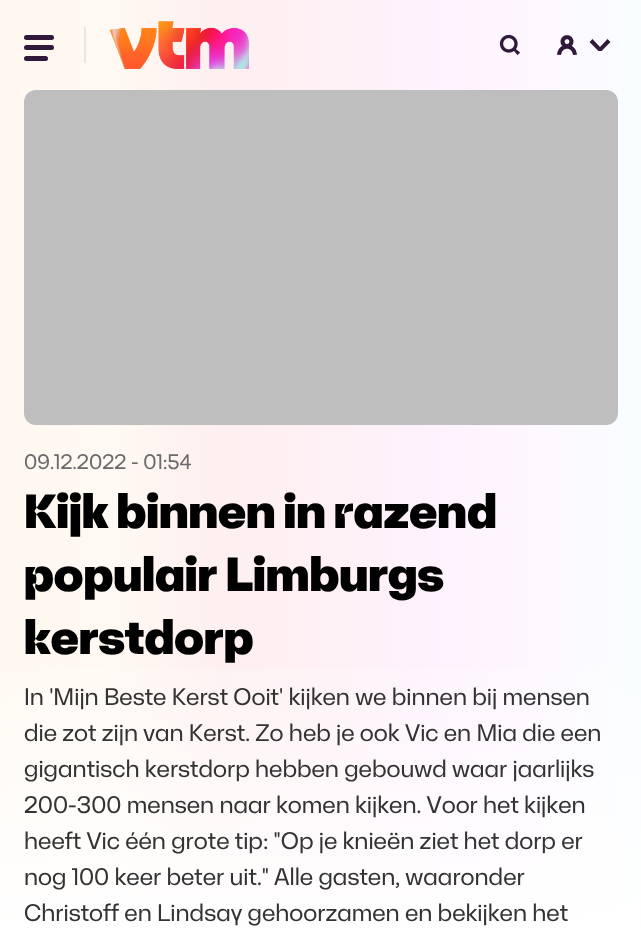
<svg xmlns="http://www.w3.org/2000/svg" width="641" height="930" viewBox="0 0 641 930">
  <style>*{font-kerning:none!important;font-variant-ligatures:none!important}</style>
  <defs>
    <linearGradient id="g1" gradientUnits="userSpaceOnUse" x1="0" y1="465" x2="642" y2="465"><stop offset="0" stop-color="#fff8f0"/><stop offset="0.17" stop-color="#fff9f3"/><stop offset="0.33" stop-color="#fef0f0"/><stop offset="0.5" stop-color="#fef0f4"/><stop offset="0.67" stop-color="#fef2fd"/><stop offset="0.83" stop-color="#fef7ff"/><stop offset="1" stop-color="#f8fdfe"/></linearGradient>
    <linearGradient id="g2" gradientUnits="userSpaceOnUse" x1="321" y1="0" x2="321" y2="930"><stop offset="0.66" stop-color="#fff" stop-opacity="0"/><stop offset="1" stop-color="#fff"/></linearGradient>
  </defs>
  <rect width="100%" height="100%" fill="#fff"/>
  <path d="M0 0h641v928H0z" fill="url(#g1)"/>
  <path d="M0 669h641v259H0z" fill="url(#g2)"/>
  <path d="M84 27h2v36H84z" fill="#e7e7e7"/>
  <rect x="24" y="35" width="30" height="5" rx="2.5" fill="#31193b"/>
  <rect x="24" y="45" width="30" height="5" rx="2.5" fill="#31193b"/>
  <rect x="24" y="56" width="24" height="5" rx="2.5" fill="#31193b"/>
  <image x="109" y="21" width="140" height="48" href="img/1.png"/>
  <image x="499" y="34" width="21" height="21" href="img/2.png"/>
  <image x="557" y="35" width="20" height="20" href="img/3.png"/>
  <path d="M601.5 51H598.5L589.5 42L592.5 39L600 47L607.5 39L610.5 42Z" fill="#31193b"/>
  <rect x="24" y="90" width="594" height="335" rx="12" fill="#bebebe"/>
  <text x="24" y="469" font-family="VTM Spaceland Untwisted" font-size="21" fill="#6a6a6a">09.12.2022 - 01:54</text>
  <g font-family="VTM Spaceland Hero" font-size="48" font-weight="900" fill="#000">
    <text x="24" y="528">Kijk binnen in razend</text>
    <text x="24" y="591">populair Limburgs</text>
    <text x="24" y="654">kerstdorp</text>
  </g>
  <g font-family="VTM Spaceland Untwisted" font-size="24" fill="#333">
    <text x="24" y="705">In 'Mijn Beste Kerst Ooit' kijken we binnen bij mensen</text>
    <text x="24" y="741">die zot zijn van Kerst. Zo heb je ook</text>
    <text x="405" y="741">Vic en Mia die een</text>
    <text x="24" y="777">gigantisch kerstdorp hebben gebouwd waar jaarlijks</text>
    <text x="24" y="813">200-300 mensen naar komen kijken. Voor</text>
    <text x="483" y="813">het kijken</text>
    <text x="24" y="849">heeft Vic één grote tip: "Op je knieën ziet het dorp er</text>
    <text x="24" y="885">nog 100 keer beter uit."</text>
    <text x="274" y="885">Alle gasten, waaronder</text>
    <text x="24" y="921">Christoff en Lindsay gehoorzamen en bekijken het</text>
  </g>
</svg>
